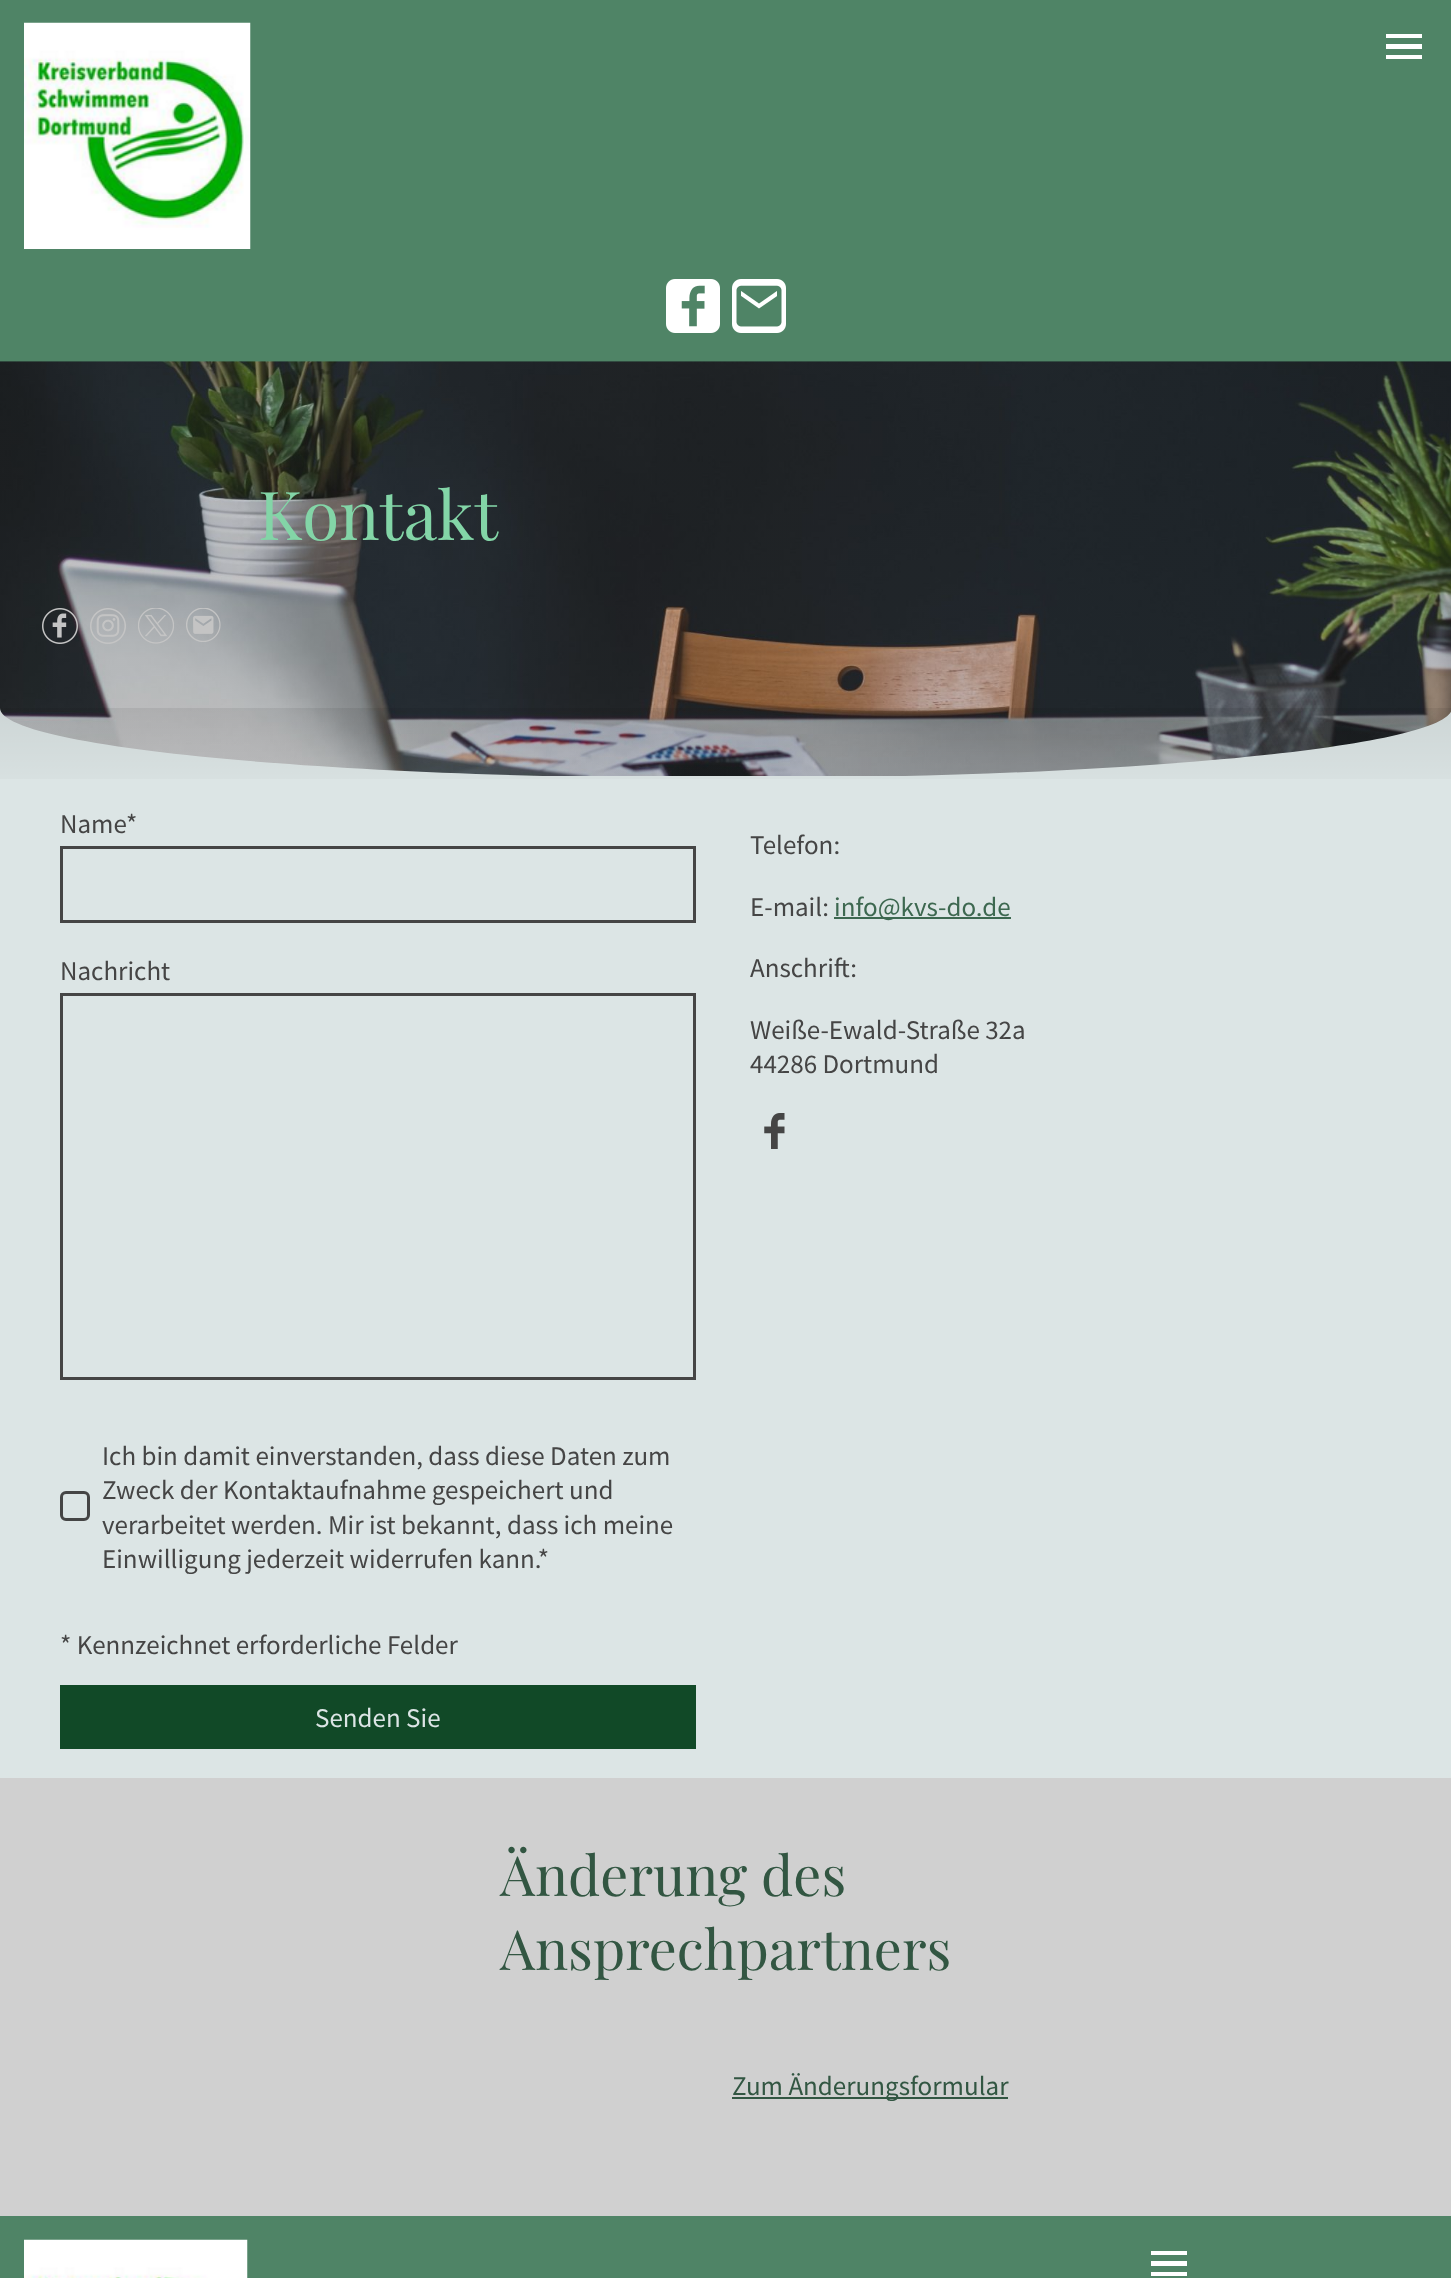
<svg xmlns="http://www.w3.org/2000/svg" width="1451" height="2278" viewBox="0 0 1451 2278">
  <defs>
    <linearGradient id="g1" gradientUnits="userSpaceOnUse" x1="726" y1="708" x2="726" y2="810"><stop offset="0" stop-color="#000" stop-opacity="0.07"/><stop offset="1" stop-color="#000" stop-opacity="0"/></linearGradient>
  </defs>
  <rect width="100%" height="100%" fill="#dce5e5"/>
  <path d="M0 0h1451v362H0z" fill="#4f8466"/>
  <image x="24" y="22" width="227" height="227" href="img/1.png"/>
  <path d="M1386 34h36v4H1386z" fill="#fff"/>
  <path d="M1386 44h36v5H1386z" fill="#fff"/>
  <path d="M1386 55h36v4H1386z" fill="#fff"/>
  <image x="666" y="279" width="54" height="54" href="img/2.png"/>
  <image x="732" y="279" width="54" height="54" href="img/3.png"/>
  <image x="0" y="361" width="1451" height="415" href="img/4.png"/>
  <image x="42" y="608" width="36" height="36" href="img/5.png"/>
  <image x="90" y="608" width="36" height="36" href="img/6.png"/>
  <image x="138" y="608" width="36" height="36" href="img/7.png"/>
  <image x="186" y="608" width="35" height="34" href="img/8.png"/>
  <image x="0" y="708" width="1451" height="69" href="img/9.png"/>
  <path d="M0 708h1451v71H0z" fill="url(#g1)"/>
  <path d="M61.5 847.5h633v74H61.5z" fill="none" stroke="#454545" stroke-width="3"/>
  <path d="M61.5 994.5h633v384H61.5z" fill="none" stroke="#454545" stroke-width="3"/>
  <rect x="61.5" y="1492.5" width="27" height="27" rx="4.5" fill="none" stroke="#454545" stroke-width="3"/>
  <path d="M60 1685h636v64H60z" fill="#114927"/>
  <path d="M834 917h177v2H834z" fill="#3d6850"/>
  <image x="764" y="1113" width="21" height="36" href="img/10.png"/>
  <path d="M0 1778h1451v438H0z" fill="#d0d0d0"/>
  <path d="M732 2097h276v2H732z" fill="#325642"/>
  <path d="M0 2216h1451v62H0z" fill="#4f8466"/>
  <image x="24" y="2239" width="224" height="39" href="img/11.png"/>
  <path d="M1151 2251h36v4H1151z" fill="#fff"/>
  <path d="M1151 2261h36v5H1151z" fill="#fff"/>
  <path d="M1151 2272h36v4H1151z" fill="#fff"/>
  <text x="258" y="540" font-family="Playfair Display" font-size="67.5" fill="#83d5a7">Kontakt</text>
  <g font-family="Source Sans Pro" font-size="27" fill="#454545">
    <text x="60" y="833">Name</text>
    <text x="126" y="833">*</text>
    <text x="60" y="980">Nachricht</text>
    <text x="102" y="1465">Ich bin damit einverstanden, dass diese Daten zum</text>
    <text x="102" y="1499">Zweck der Kontaktaufnahme gespeichert und</text>
    <text x="102" y="1534">verarbeitet werden. Mir ist bekannt, dass ich meine</text>
    <text x="102" y="1568">Einwilligung jederzeit widerrufen kann.*</text>
    <text x="60" y="1654">* Kennzeichnet erforderliche Felder</text>
  </g>
  <text x="315" y="1727" font-family="Source Sans Pro" font-size="27" fill="#dce5e5">Senden Sie</text>
  <g font-family="Source Sans Pro" font-size="27" fill="#454545">
    <text x="750" y="854">Telefon:</text>
    <text x="750" y="916">E-mail:</text>
  </g>
  <text x="834" y="916" font-family="Source Sans Pro" font-size="27" fill="#3d6850">info@kvs-do.de</text>
  <g font-family="Source Sans Pro" font-size="27" fill="#454545">
    <text x="750" y="977">Anschrift:</text>
    <text x="750" y="1039">Weiße-Ewald-Straße 32a</text>
    <text x="750" y="1073">44286 Dortmund</text>
  </g>
  <g font-family="Playfair Display" font-size="55.5" fill="#325642">
    <text x="500" y="1896">Änderung des</text>
    <text x="500" y="1970">Ansprechpartners</text>
  </g>
  <text x="732" y="2095" font-family="Source Sans Pro" font-size="27" fill="#325642">Zum Änderungsformular</text>
</svg>
